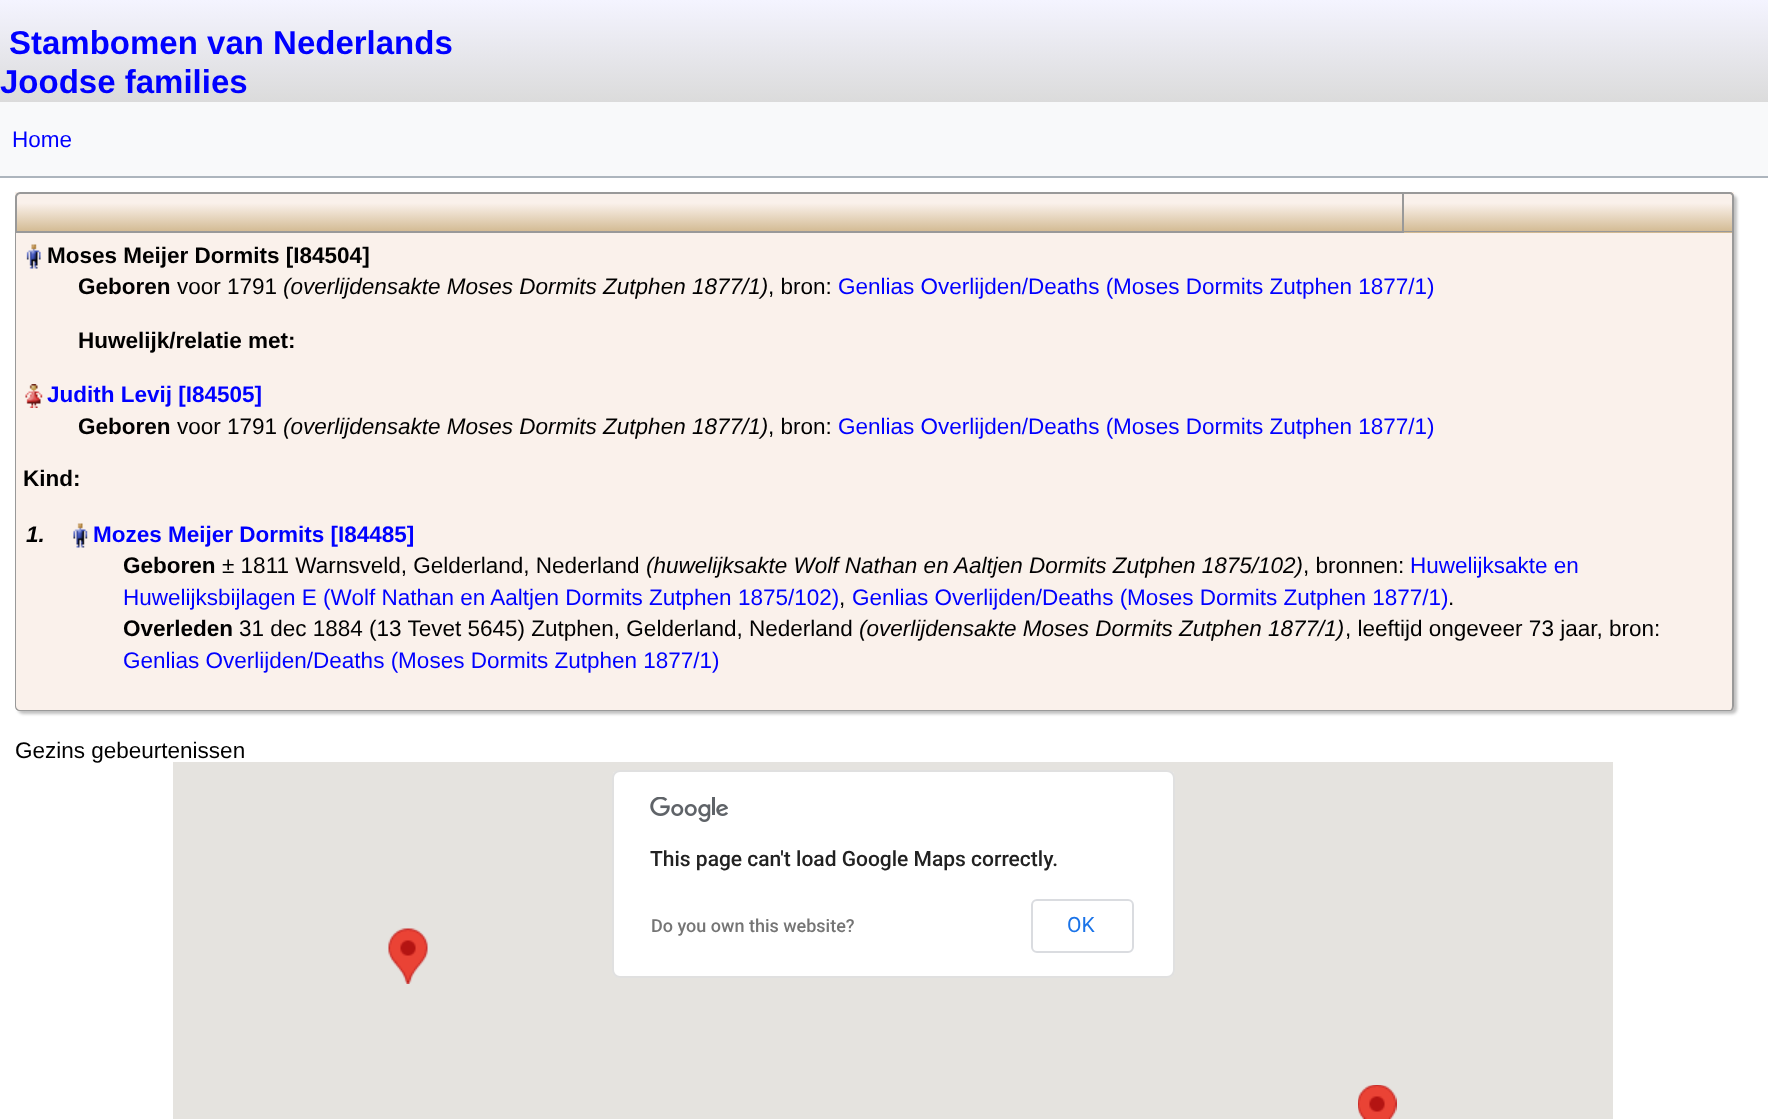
<svg xmlns="http://www.w3.org/2000/svg" width="1768" height="1119" viewBox="0 0 1768 1119">
  <defs>
    <linearGradient id="g1" gradientUnits="userSpaceOnUse" x1="884" y1="0" x2="884" y2="102"><stop offset="0" stop-color="#f4f4ff"/><stop offset="1" stop-color="#dbdbdb"/></linearGradient>
    <linearGradient id="g2" gradientUnits="userSpaceOnUse" x1="875" y1="233" x2="875" y2="192"><stop offset="0" stop-color="#d1b88f"/><stop offset="0.73" stop-color="#faf1eb"/></linearGradient>
  </defs>
  <rect width="100%" height="100%" fill="#fff"/>
  <path d="M0 0h1768v102H0z" fill="url(#g1)"/>
  <path d="M0 102h1768v74H0z" fill="#f8f9fa"/>
  <path d="M0 176h1768v2H0z" fill="#adb5bd"/>
  <rect x="18" y="195" width="1719" height="519" rx="5" fill="#c0c0c0" filter="blur(1.5px)"/>
  <rect x="15" y="192" width="1719" height="519" rx="5" fill="#faf1eb"/>
  <path d="M15 192h1719v41H15z" fill="url(#g2)"/>
  <path d="M20 193H1403V232H16V197C16 195 18 193 20 193Z" fill="none" stroke="#999" stroke-width="2"/>
  <path d="M1404 192H1730C1732 192 1734 194 1734 196V232H1404ZM1404 194H1730C1731 194 1732 195 1732 196V231H1404Z" fill="#999" fill-rule="evenodd"/>
  <path d="M15 232H1734V706C1734 709 1732 711 1730 711H20C17 711 15 709 15 706ZM16 232H1732V706C1732 708 1731 710 1730 710H20C18 710 16 708 16 706Z" fill="#999" fill-rule="evenodd"/>
  <image x="26" y="244" width="15" height="25" href="img/1.png"/>
  <image x="25" y="384" width="18" height="24" href="img/2.png"/>
  <image x="73" y="523" width="15" height="25" href="img/3.png"/>
  <g font-family="Liberation Sans" font-size="33" font-weight="bold" fill="#00f">
    <text x="9" y="54">Stambomen van Nederlands</text>
    <text x="0" y="93">Joodse families</text>
  </g>
  <text x="12" y="147" font-family="Liberation Sans" font-size="22.5" fill="#00f">Home</text>
  <g font-family="Liberation Sans" font-size="22.5" font-weight="bold" fill="#000">
    <text x="47" y="263">Moses Meijer Dormits [I84504]</text>
    <text x="78" y="294">Geboren</text>
  </g>
  <text x="177" y="294" font-family="Liberation Sans" font-size="22.5" fill="#000">voor 1791</text>
  <text x="283" y="294" font-family="Liberation Sans" font-size="22.5" font-style="italic" fill="#000">(overlijdensakte Moses Dormits Zutphen 1877/1)</text>
  <text x="768" y="294" font-family="Liberation Sans" font-size="22.5" fill="#000">, bron:</text>
  <text x="838" y="294" font-family="Liberation Sans" font-size="22.5" fill="#00f">Genlias Overlijden/Deaths (Moses Dormits Zutphen 1877/1)</text>
  <text x="78" y="348" font-family="Liberation Sans" font-size="22.5" font-weight="bold" fill="#000">Huwelijk/relatie met:</text>
  <text x="47" y="402" font-family="Liberation Sans" font-size="22.5" font-weight="bold" fill="#00f">Judith Levij [I84505]</text>
  <text x="78" y="434" font-family="Liberation Sans" font-size="22.5" font-weight="bold" fill="#000">Geboren</text>
  <text x="177" y="434" font-family="Liberation Sans" font-size="22.5" fill="#000">voor 1791</text>
  <text x="283" y="434" font-family="Liberation Sans" font-size="22.5" font-style="italic" fill="#000">(overlijdensakte Moses Dormits Zutphen 1877/1)</text>
  <text x="768" y="434" font-family="Liberation Sans" font-size="22.5" fill="#000">, bron:</text>
  <text x="838" y="434" font-family="Liberation Sans" font-size="22.5" fill="#00f">Genlias Overlijden/Deaths (Moses Dormits Zutphen 1877/1)</text>
  <text x="23" y="486" font-family="Liberation Sans" font-size="22.5" font-weight="bold" fill="#000">Kind:</text>
  <text x="26" y="542" font-family="Liberation Sans" font-size="22.5" font-weight="bold" font-style="italic" fill="#000">1.</text>
  <text x="93" y="542" font-family="Liberation Sans" font-size="22.5" font-weight="bold" fill="#00f">Mozes Meijer Dormits [I84485]</text>
  <text x="123" y="573" font-family="Liberation Sans" font-size="22.5" font-weight="bold" fill="#000">Geboren</text>
  <text x="222" y="573" font-family="Liberation Sans" font-size="22.5" fill="#000">± 1811 Warnsveld, Gelderland, Nederland</text>
  <text x="646" y="573" font-family="Liberation Sans" font-size="22.5" font-style="italic" fill="#000">(huwelijksakte Wolf Nathan en Aaltjen Dormits Zutphen 1875/102)</text>
  <text x="1303" y="573" font-family="Liberation Sans" font-size="22.5" fill="#000">, bronnen:</text>
  <g font-family="Liberation Sans" font-size="22.5" fill="#00f">
    <text x="1410" y="573">Huwelijksakte en</text>
    <text x="123" y="605">Huwelijksbijlagen E (Wolf Nathan en Aaltjen Dormits Zutphen 1875/102)</text>
  </g>
  <text x="839" y="605" font-family="Liberation Sans" font-size="22.5" fill="#000">,</text>
  <text x="852" y="605" font-family="Liberation Sans" font-size="22.5" fill="#00f">Genlias Overlijden/Deaths (Moses Dormits Zutphen 1877/1)</text>
  <text x="1448" y="605" font-family="Liberation Sans" font-size="22.5" fill="#000">.</text>
  <text x="123" y="636" font-family="Liberation Sans" font-size="22.5" font-weight="bold" fill="#000">Overleden</text>
  <text x="239" y="636" font-family="Liberation Sans" font-size="22.5" fill="#000">31 dec 1884 (13 Tevet 5645) Zutphen, Gelderland, Nederland</text>
  <text x="859" y="636" font-family="Liberation Sans" font-size="22.5" font-style="italic" fill="#000">(overlijdensakte Moses Dormits Zutphen 1877/1)</text>
  <text x="1345" y="636" font-family="Liberation Sans" font-size="22.5" fill="#000">, leeftijd ongeveer 73 jaar, bron:</text>
  <text x="123" y="668" font-family="Liberation Sans" font-size="22.5" fill="#00f">Genlias Overlijden/Deaths (Moses Dormits Zutphen 1877/1)</text>
  <text x="15" y="758" font-family="Liberation Sans" font-size="22.5" fill="#000">Gezins gebeurtenissen</text>
  <path d="M173 762h1440v357H173z" fill="#e5e3df"/>
  <image x="388" y="928" width="40" height="56" href="img/4.png"/>
  <image x="1358" y="1085" width="39" height="34" href="img/5.png"/>
  <rect x="612" y="770" width="563" height="208" rx="8" fill="#fff"/>
  <rect x="613" y="771" width="561" height="206" rx="7" fill="none" stroke="#0000001f" stroke-width="2"/>
  <image x="650" y="797" width="78" height="25" href="img/6.png"/>
  <text x="650" y="866" font-family="Roboto" font-size="21" font-weight="500" fill="#212121">This page can't load Google Maps correctly.</text>
  <text x="651" y="932" font-family="Roboto" font-size="18" font-weight="500" fill="#757575">Do you own this website?</text>
  <rect x="1032" y="900" width="101" height="52" rx="5" fill="none" stroke="#dadce0" stroke-width="2"/>
  <text x="1067" y="932" font-family="Roboto" font-size="21" fill="#1a73e8">OK</text>
</svg>
